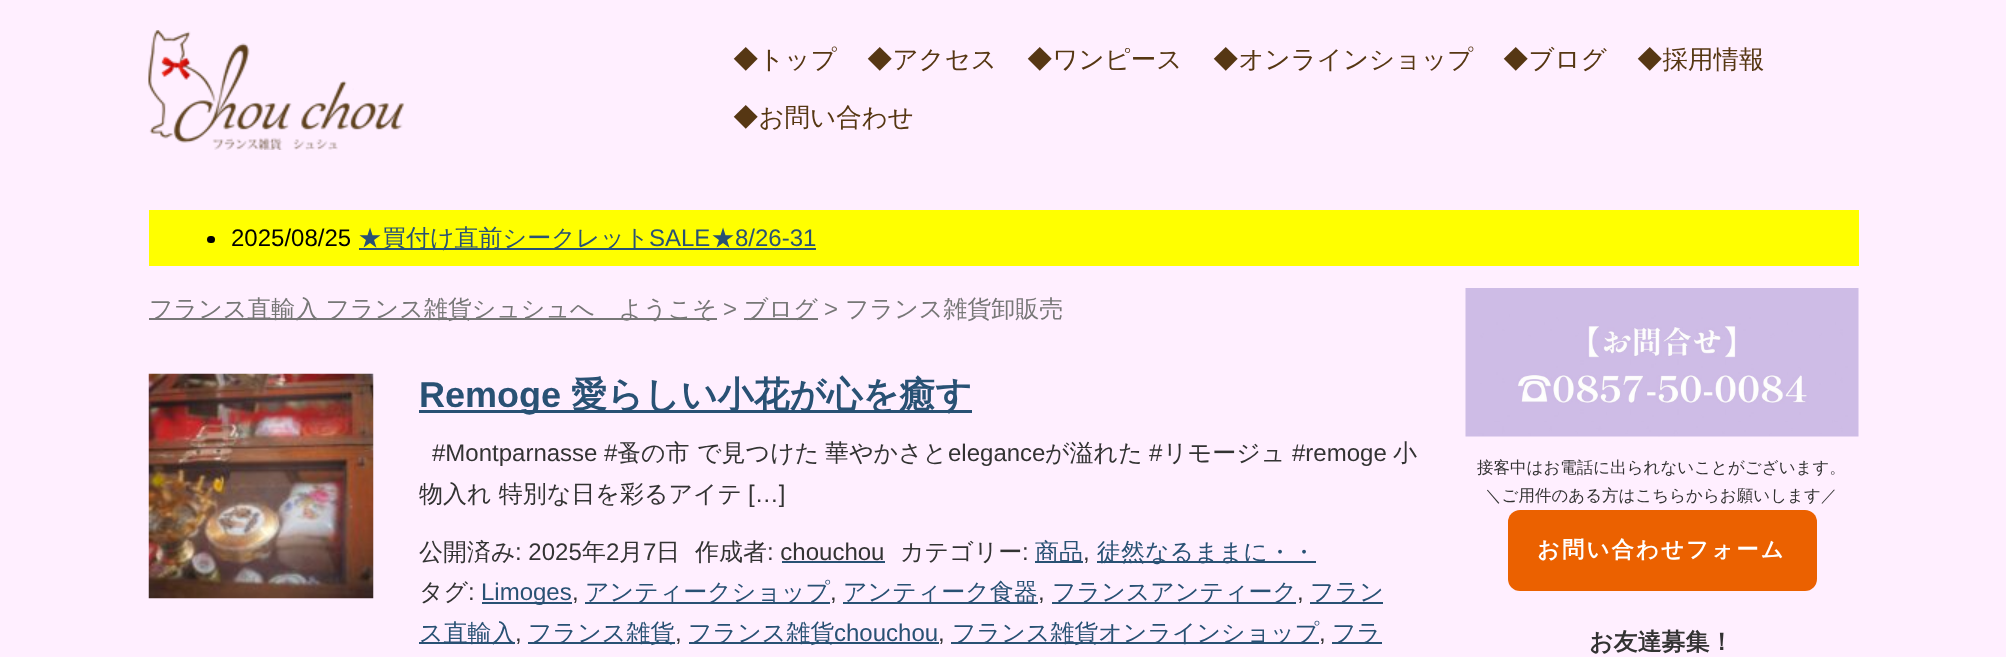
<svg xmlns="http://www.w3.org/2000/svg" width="2006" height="657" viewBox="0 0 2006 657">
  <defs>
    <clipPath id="clip1"><path d="M419 374h1002v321H419z"/></clipPath>
  </defs>
  <rect width="100%" height="100%" fill="#ffefff"/>
  <image x="148" y="30" width="257" height="120" href="img/1.png"/>
  <path d="M149 210h1710v56H149z" fill="#ff0"/>
  <rect x="207" y="236" width="8" height="7" rx="3.5" fill="#000"/>
  <path d="M359 248h457v2H359z" fill="#295174"/>
  <path d="M149 318h568v2H149z" fill="#777"/>
  <path d="M744 318h74v2H744z" fill="#777"/>
  <image x="148" y="373" width="226" height="226" href="img/2.png"/>
  <path d="M419 410h553v3H419z" fill="#295174"/>
  <path d="M782 561h103v2H782z" fill="#295174"/>
  <path d="M1035 561h48v2H1035z" fill="#295174"/>
  <path d="M1097 561h219v2H1097z" fill="#295174"/>
  <path d="M482 602h90v2H482z" fill="#295174"/>
  <path d="M585 602h245v2H585z" fill="#295174"/>
  <path d="M843 602h195v2H843z" fill="#295174"/>
  <path d="M1052 602h244v2H1052z" fill="#295174"/>
  <path d="M1310 602h73v2H1310z" fill="#295174"/>
  <path d="M419 642h96v2H419z" fill="#295174"/>
  <path d="M528 642h147v2H528z" fill="#295174"/>
  <path d="M689 642h250v2H689z" fill="#295174"/>
  <path d="M951 642h368v2H951z" fill="#295174"/>
  <path d="M1332 642h50v2H1332z" fill="#295174"/>
  <image x="1465" y="288" width="394" height="149" href="img/3.png"/>
  <rect x="1508" y="510" width="309" height="81" rx="12" fill="#eb6100"/>
  <g font-family="WenQuanYi Zen Hei" font-size="25.5" font-weight="500" fill="#563713">
    <text x="733" y="68">◆トップ</text>
    <text x="867" y="68">◆アクセス</text>
    <text x="1027" y="68">◆ワンピース</text>
    <text x="1213" y="68">◆オンラインショップ</text>
    <text x="1503" y="68">◆ブログ</text>
    <text x="1637" y="68">◆採用情報</text>
    <text x="733" y="126">◆お問い合わせ</text>
  </g>
  <text x="231" y="246" font-family="Liberation Sans" font-size="24" fill="#000">2025/08/25</text>
  <text x="358" y="246" font-family="WenQuanYi Zen Hei" font-size="24" font-weight="500" fill="#295174">★買付け直前シークレット</text>
  <text x="649" y="246" font-family="Liberation Sans" font-size="24" fill="#295174">SALE</text>
  <text x="711" y="246" font-family="WenQuanYi Zen Hei" font-size="24" font-weight="500" fill="#295174">★</text>
  <text x="735" y="246" font-family="Liberation Sans" font-size="24" fill="#295174">8/26-31</text>
  <text x="149" y="317" word-spacing="-1" font-family="WenQuanYi Zen Hei" font-size="24" font-weight="500" fill="#777">フランス直輸入 フランス雑貨シュシュへ　ようこそ</text>
  <text x="723" y="317" font-family="Liberation Sans" font-size="24" fill="#777">&gt;</text>
  <text x="744" y="317" font-family="WenQuanYi Zen Hei" font-size="24" font-weight="500" fill="#777">ブログ</text>
  <text x="824" y="317" font-family="Liberation Sans" font-size="24" fill="#777">&gt;</text>
  <text x="845" y="317" font-family="WenQuanYi Zen Hei" font-size="24" font-weight="500" fill="#777">フランス雑貨卸販売</text>
  <text x="419" y="407" font-family="Liberation Sans" font-size="36" font-weight="bold" fill="#295174">Remoge</text>
  <text x="571" y="407" font-family="WenQuanYi Zen Hei" font-size="36" font-weight="bold" fill="#295174">愛らしい小花が心を癒す</text>
  <text x="432" y="461" font-family="Liberation Sans" font-size="24" fill="#333">#Montparnasse #</text>
  <g font-family="WenQuanYi Zen Hei" font-size="24" font-weight="500" fill="#333">
    <text x="617" y="461">蚤の市</text>
    <text x="697" y="461">で見つけた</text>
    <text x="825" y="461">華やかさと</text>
  </g>
  <text x="948" y="461" font-family="Liberation Sans" font-size="24" fill="#333">elegance</text>
  <text x="1045" y="461" font-family="WenQuanYi Zen Hei" font-size="24" font-weight="500" fill="#333">が溢れた</text>
  <text x="1149" y="461" font-family="Liberation Sans" font-size="24" fill="#333">#</text>
  <text x="1163" y="461" font-family="WenQuanYi Zen Hei" font-size="24" font-weight="500" fill="#333">リモージュ</text>
  <text x="1292" y="461" font-family="Liberation Sans" font-size="24" fill="#333">#remoge</text>
  <text x="1393" y="461" font-family="WenQuanYi Zen Hei" font-size="24" font-weight="500" fill="#333">小</text>
  <g clip-path="url(#clip1)">
    <text x="419" y="502" font-family="WenQuanYi Zen Hei" font-size="24" font-weight="500" fill="#333">物入れ 特別な日を彩るアイテ</text>
  </g>
  <text x="748" y="502" font-family="Liberation Sans" font-size="24" fill="#333">[…]</text>
  <text x="419" y="560" font-family="WenQuanYi Zen Hei" font-size="24" font-weight="500" fill="#333">公開済み</text>
  <text x="515" y="560" font-family="Liberation Sans" font-size="24" fill="#333">: 2025</text>
  <text x="582" y="560" font-family="WenQuanYi Zen Hei" font-size="24" font-weight="500" fill="#333">年</text>
  <text x="606" y="560" font-family="Liberation Sans" font-size="24" fill="#333">2</text>
  <text x="619" y="560" font-family="WenQuanYi Zen Hei" font-size="24" font-weight="500" fill="#333">月</text>
  <text x="643" y="560" font-family="Liberation Sans" font-size="24" fill="#333">7</text>
  <g font-family="WenQuanYi Zen Hei" font-size="24" font-weight="500" fill="#333">
    <text x="656" y="560">日</text>
    <text x="695" y="560">作成者</text>
  </g>
  <text x="767" y="560" font-family="Liberation Sans" font-size="24" fill="#333">: chouchou</text>
  <text x="900" y="560" font-family="WenQuanYi Zen Hei" font-size="24" font-weight="500" fill="#333">カテゴリー</text>
  <text x="1022" y="560" font-family="Liberation Sans" font-size="24" fill="#333">:</text>
  <text x="1035" y="560" font-family="WenQuanYi Zen Hei" font-size="24" font-weight="500" fill="#295174">商品</text>
  <text x="1083" y="560" font-family="Liberation Sans" font-size="24" fill="#333">,</text>
  <text x="1097" y="560" font-family="WenQuanYi Zen Hei" font-size="24" font-weight="500" fill="#295174">徒然なるままに・・</text>
  <text x="419" y="600" font-family="WenQuanYi Zen Hei" font-size="24" font-weight="500" fill="#333">タグ</text>
  <text x="468" y="600" font-family="Liberation Sans" font-size="24" fill="#333">:</text>
  <text x="481" y="600" font-family="Liberation Sans" font-size="24" fill="#295174">Limoges</text>
  <text x="572" y="600" font-family="Liberation Sans" font-size="24" fill="#333">,</text>
  <text x="585" y="600" font-family="WenQuanYi Zen Hei" font-size="24" font-weight="500" fill="#295174">アンティークショップ</text>
  <text x="830" y="600" font-family="Liberation Sans" font-size="24" fill="#333">,</text>
  <text x="843" y="600" font-family="WenQuanYi Zen Hei" font-size="24" font-weight="500" fill="#295174">アンティーク食器</text>
  <text x="1038" y="600" font-family="Liberation Sans" font-size="24" fill="#333">,</text>
  <text x="1052" y="600" font-family="WenQuanYi Zen Hei" font-size="24" font-weight="500" fill="#295174">フランスアンティーク</text>
  <text x="1297" y="600" font-family="Liberation Sans" font-size="24" fill="#333">,</text>
  <g font-family="WenQuanYi Zen Hei" font-size="24" font-weight="500" fill="#295174">
    <text x="1310" y="600">フラン</text>
    <text x="419" y="641">ス直輸入</text>
  </g>
  <text x="515" y="641" font-family="Liberation Sans" font-size="24" fill="#333">,</text>
  <text x="528" y="641" font-family="WenQuanYi Zen Hei" font-size="24" font-weight="500" fill="#295174">フランス雑貨</text>
  <text x="675" y="641" font-family="Liberation Sans" font-size="24" fill="#333">,</text>
  <text x="688" y="641" font-family="WenQuanYi Zen Hei" font-size="24" font-weight="500" fill="#295174">フランス雑貨</text>
  <text x="834" y="641" font-family="Liberation Sans" font-size="24" fill="#295174">chouchou</text>
  <text x="938" y="641" font-family="Liberation Sans" font-size="24" fill="#333">,</text>
  <text x="952" y="641" font-family="WenQuanYi Zen Hei" font-size="24" font-weight="500" fill="#295174">フランス雑貨オンラインショップ</text>
  <text x="1319" y="641" font-family="Liberation Sans" font-size="24" fill="#333">,</text>
  <text x="1332" y="641" font-family="WenQuanYi Zen Hei" font-size="24" font-weight="500" fill="#295174">フラ</text>
  <g font-family="WenQuanYi Zen Hei" font-size="16.5" font-weight="500" fill="#333">
    <text x="1477" y="473">接客中はお電話に出られないことがございます。</text>
    <text x="1485" y="501">＼ご用件のある方はこちらからお願いします／</text>
  </g>
  <text x="1537" y="557" font-family="WenQuanYi Zen Hei" font-size="22.25" font-weight="bold" letter-spacing="2.25" fill="#fff">お問い合わせフォーム</text>
  <text x="1589" y="650" font-family="WenQuanYi Zen Hei" font-size="24" font-weight="bold" fill="#333">お友達募集！</text>
</svg>
